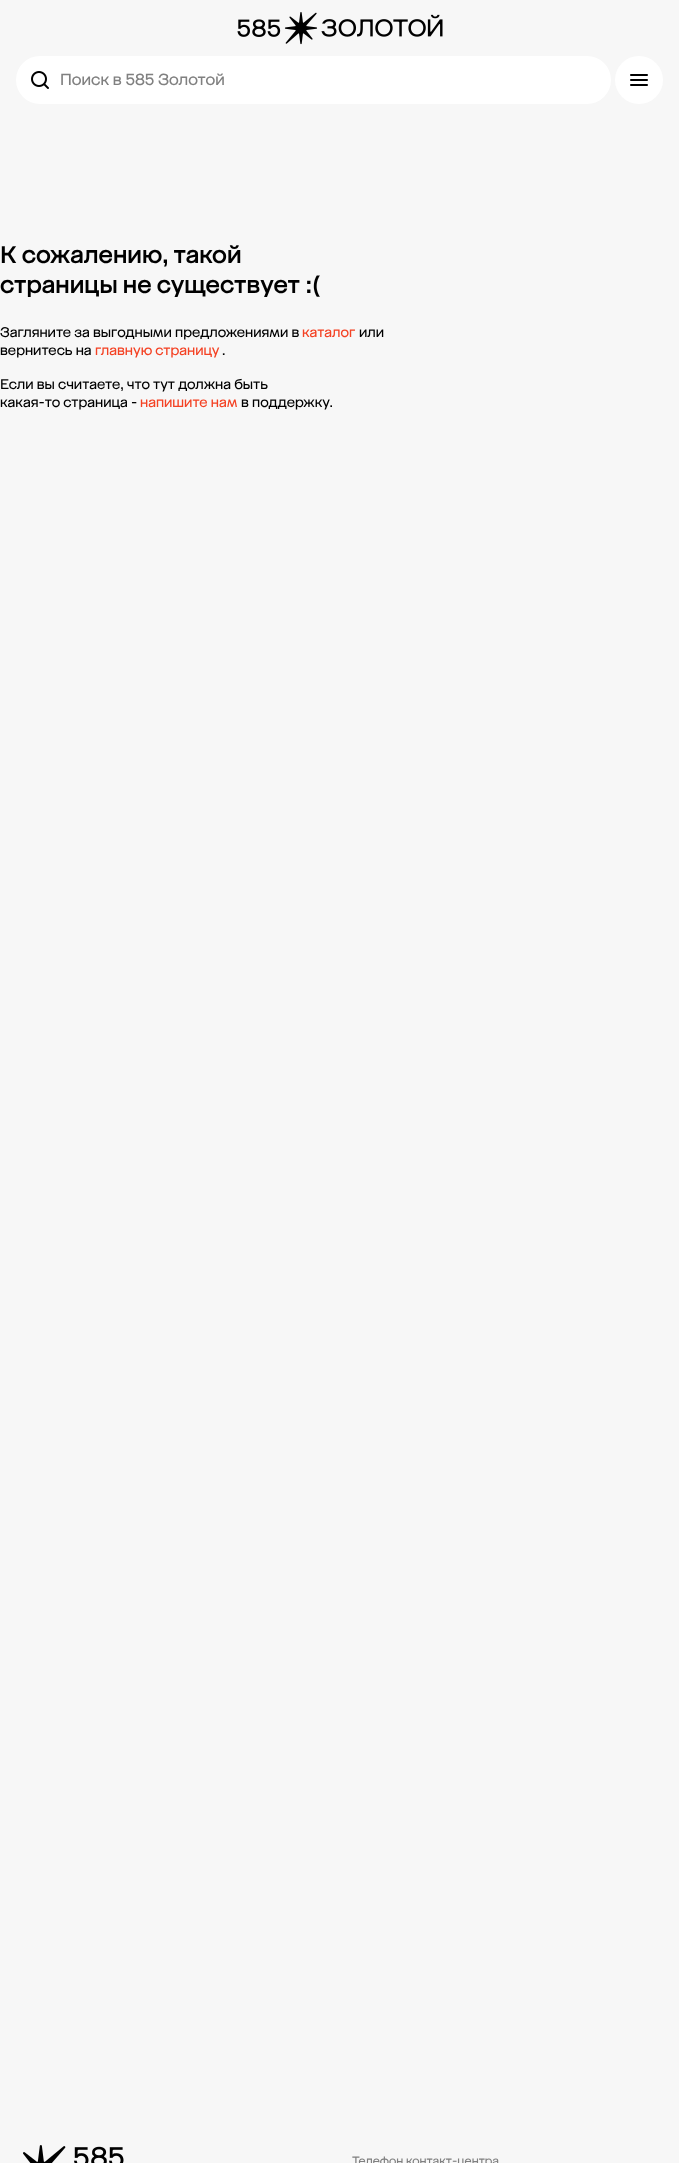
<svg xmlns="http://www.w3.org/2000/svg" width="679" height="2163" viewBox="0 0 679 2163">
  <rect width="100%" height="100%" fill="#f7f7f7"/>
  <image x="237" y="12" width="206" height="33" href="img/1.png"/>
  <rect x="16" y="56" width="595" height="48" rx="24" fill="#fff"/>
  <image x="31" y="71" width="18" height="18" href="img/2.png"/>
  <circle cx="639" cy="80" r="24" fill="#fff"/>
  <image x="630" y="74" width="18" height="12" href="img/3.png"/>
  <image x="23" y="2145" width="101" height="18" href="img/4.png"/>
  <text x="60" y="85" font-family="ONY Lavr" font-size="16" fill="#808080">Поиск в 585 Золотой</text>
  <g font-family="ONY Lavr" font-size="24" font-weight="500" fill="#000">
    <text x="0" y="263">К сожалению, такой</text>
    <text x="0" y="293">страницы не существует :(</text>
  </g>
  <text x="0" y="337" font-family="ONY Lavr" font-size="14" fill="#000">Загляните за выгодными предложениями в</text>
  <text x="302" y="337" font-family="ONY Lavr" font-size="14" fill="#f44224">каталог</text>
  <g font-family="ONY Lavr" font-size="14" fill="#000">
    <text x="359" y="337">или</text>
    <text x="0" y="355">вернитесь на</text>
  </g>
  <text x="95" y="355" font-family="ONY Lavr" font-size="14" fill="#f44224">главную страницу</text>
  <g font-family="ONY Lavr" font-size="14" fill="#000">
    <text x="222" y="355">.</text>
    <text x="0" y="389">Если вы считаете, что тут должна быть</text>
    <text x="0" y="407">какая-то страница -</text>
  </g>
  <text x="140" y="407" font-family="ONY Lavr" font-size="14" fill="#f44224">напишите нам</text>
  <text x="241" y="407" font-family="ONY Lavr" font-size="14" fill="#000">в поддержку.</text>
  <text x="352" y="2165" font-family="ONY Lavr" font-size="12" fill="#808080">Телефон контакт-центра</text>
</svg>
